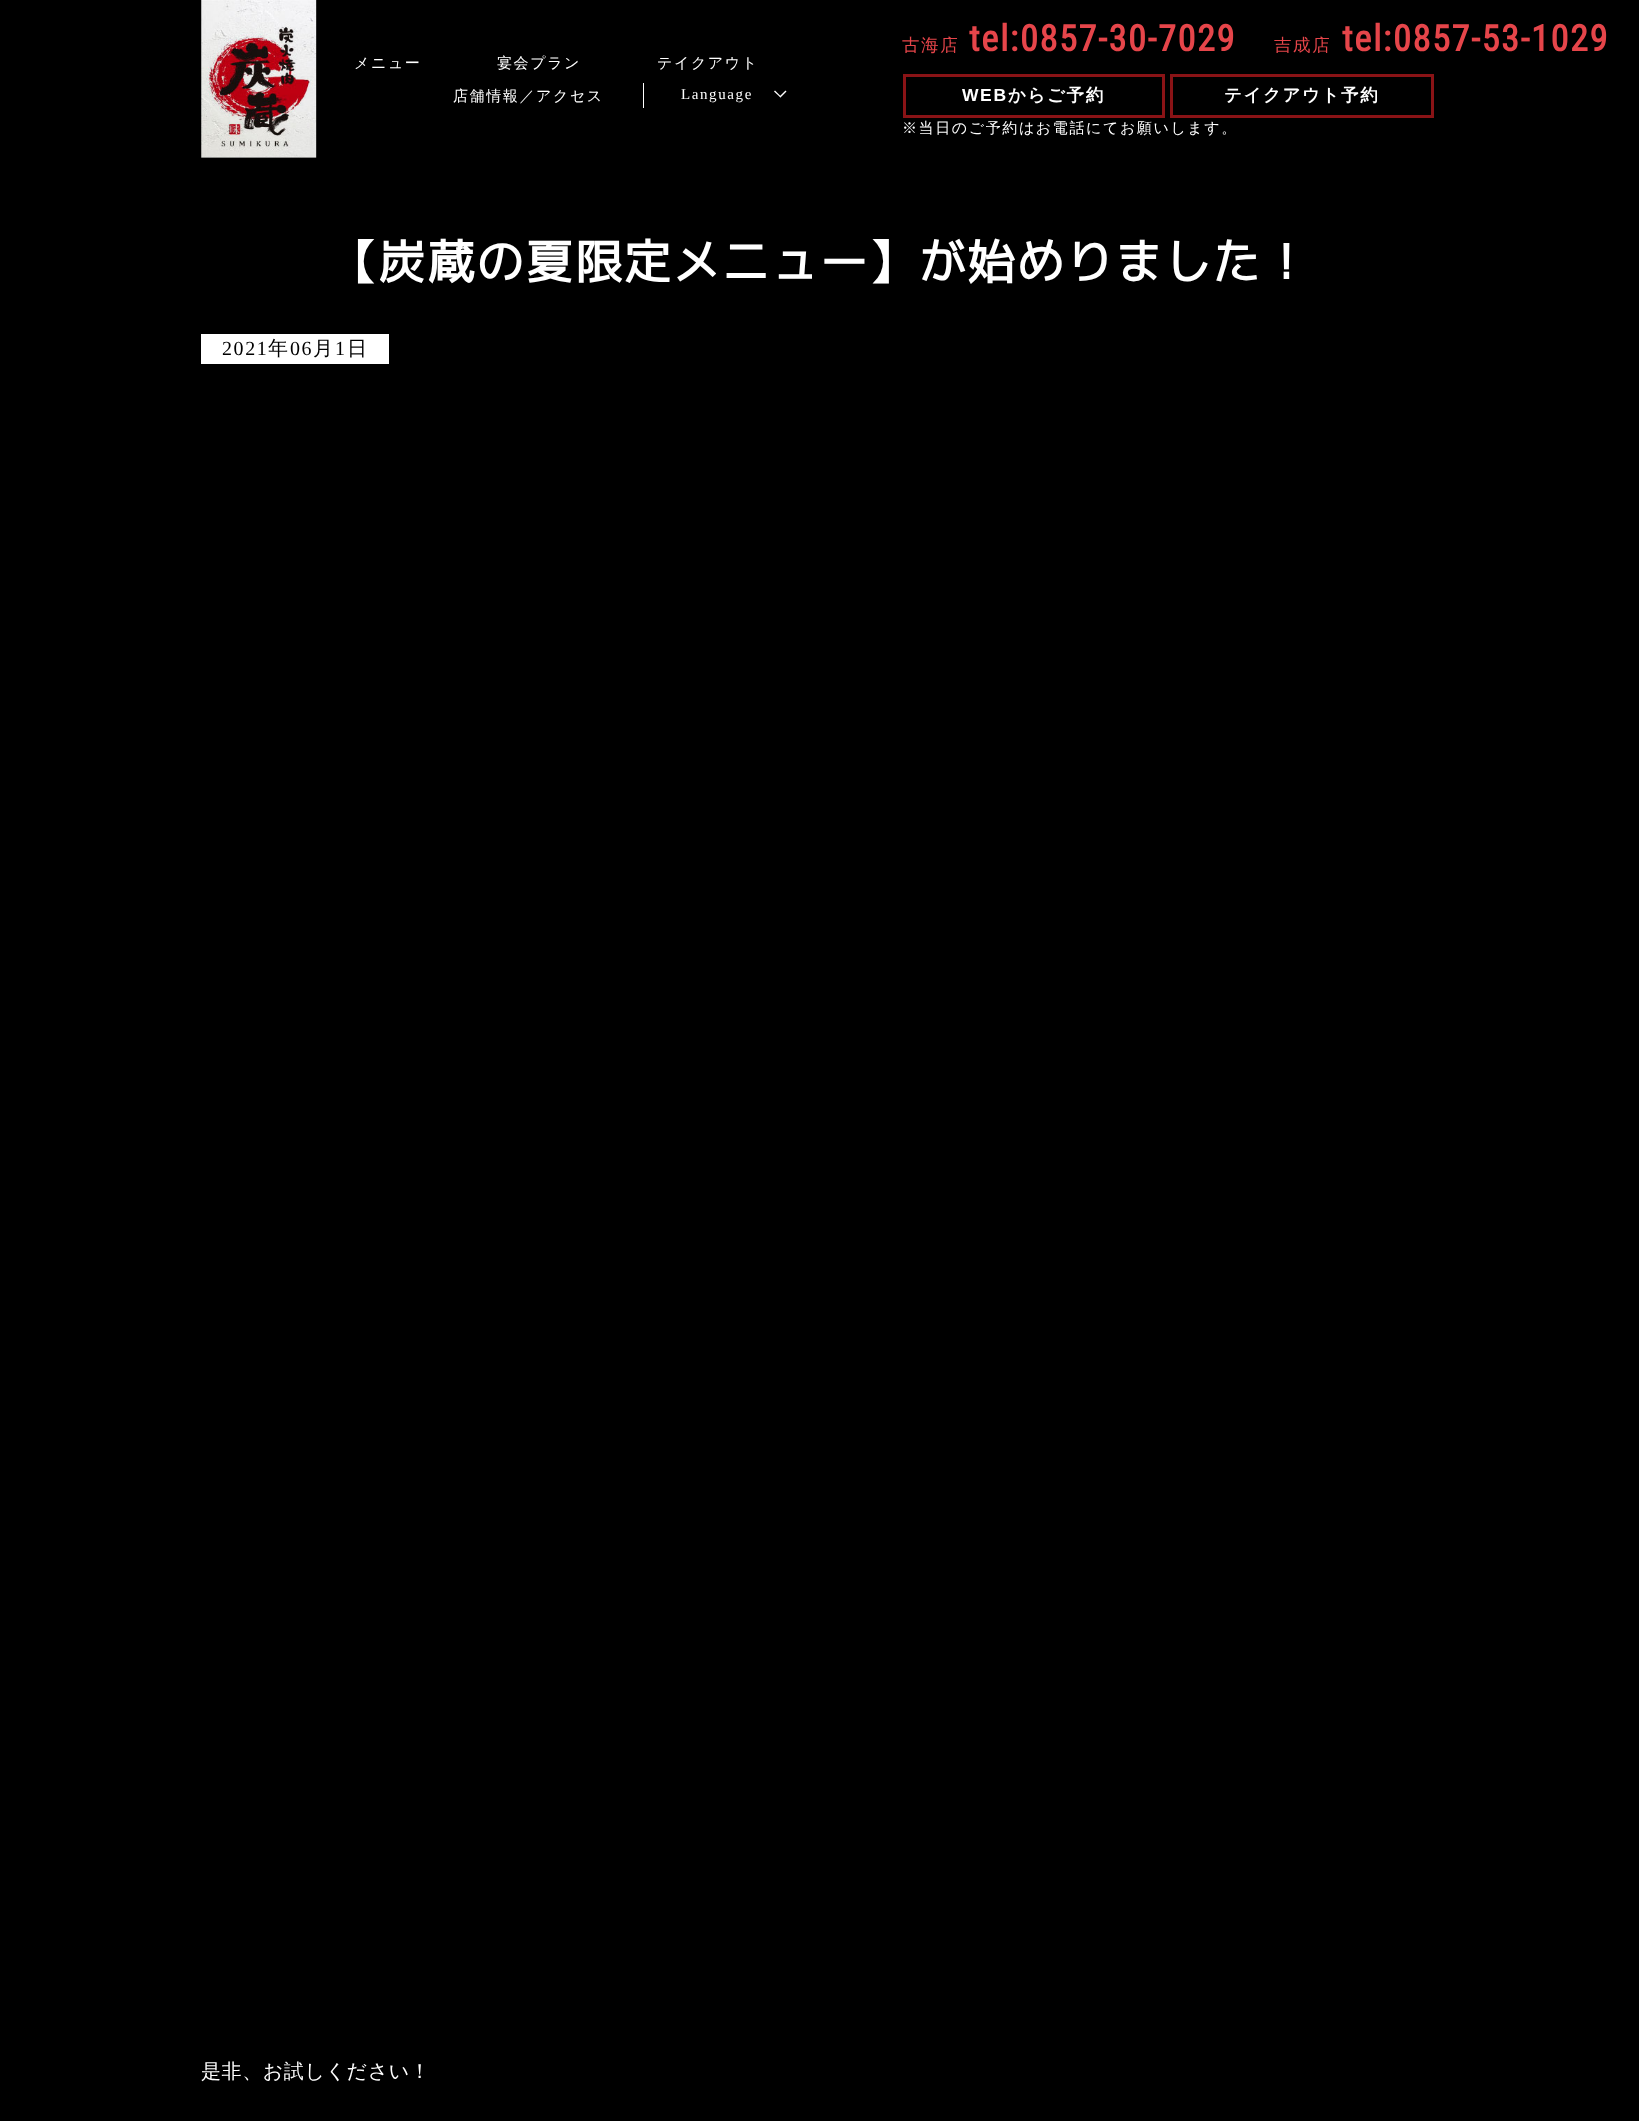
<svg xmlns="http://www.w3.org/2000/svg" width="1639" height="2121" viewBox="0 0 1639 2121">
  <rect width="100%" height="100%" fill="#000"/>
  <image x="201" y="0" width="116" height="158" href="img/1.png"/>
  <path d="M643 83h1v25H643z" fill="#fff"/>
  <path d="M785.5 90.5L786.5 91.5L780.5 97.5L779.5 96.5Z" fill="#fff"/>
  <path d="M775 90.5L781 96.5L780.5 97.5L774 91.5Z" fill="#fff"/>
  <path d="M904.5 75.5h259v41H904.5z" fill="none" stroke="#8a1316" stroke-width="3"/>
  <path d="M1171.5 75.5h261v41H1171.5z" fill="none" stroke="#8a1316" stroke-width="3"/>
  <path d="M201 334h188v30H201z" fill="#fff"/>
  <g font-family="WenQuanYi Zen Hei" font-size="15" font-weight="500" letter-spacing="1.6" fill="#fff">
    <text x="354" y="68">メニュー</text>
    <text x="497" y="68">宴会プラン</text>
    <text x="657" y="68">テイクアウト</text>
    <text x="453" y="101">店舗情報／アクセス</text>
  </g>
  <text x="681" y="99" font-family="Liberation Serif" font-size="15" letter-spacing="1.6" fill="#fff">Language</text>
  <text x="902" y="51" font-family="WenQuanYi Zen Hei" font-size="17.5" font-weight="500" letter-spacing="1.6" fill="#e6454a">古海店</text>
  <text x="969" y="51" font-family="Roboto Condensed" font-size="36.25" font-weight="bold" letter-spacing="1.6" fill="#e6454a">tel:0857-30-7029</text>
  <text x="1274" y="51" font-family="WenQuanYi Zen Hei" font-size="17.5" font-weight="500" letter-spacing="1.6" fill="#e6454a">吉成店</text>
  <text x="1342" y="51" font-family="Roboto Condensed" font-size="36.25" font-weight="bold" letter-spacing="1.6" fill="#e6454a">tel:0857-53-1029</text>
  <text x="962" y="101" font-family="Liberation Sans" font-size="17.5" font-weight="bold" letter-spacing="1.6" fill="#fff">WEB</text>
  <g font-family="WenQuanYi Zen Hei" font-size="17.5" font-weight="bold" letter-spacing="1.6" fill="#fff">
    <text x="1008" y="101">からご予約</text>
    <text x="1224" y="101">テイクアウト予約</text>
  </g>
  <text x="902" y="133" font-family="WenQuanYi Zen Hei" font-size="15" font-weight="500" letter-spacing="1.6" fill="#fff">※当日のご予約はお電話にてお願いします。</text>
  <text x="329" y="279" font-family="'M PLUS 1p'" font-size="47.5" font-weight="bold" letter-spacing="1.6" fill="#fff">【炭蔵の夏限定メニュー】が始めりました！</text>
  <text x="222" y="355" font-family="Liberation Serif" font-size="20" letter-spacing="1.6" fill="#000">2021</text>
  <text x="268" y="355" font-family="WenQuanYi Zen Hei" font-size="20" font-weight="500" letter-spacing="1.6" fill="#000">年</text>
  <text x="290" y="355" font-family="Liberation Serif" font-size="20" letter-spacing="1.6" fill="#000">06</text>
  <text x="313" y="355" font-family="WenQuanYi Zen Hei" font-size="20" font-weight="500" letter-spacing="1.6" fill="#000">月</text>
  <text x="335" y="355" font-family="Liberation Serif" font-size="20" letter-spacing="1.6" fill="#000">1</text>
  <text x="347" y="355" font-family="WenQuanYi Zen Hei" font-size="20" font-weight="500" letter-spacing="1.6" fill="#000">日</text>
  <text x="201" y="2078" font-family="WenQuanYi Zen Hei" font-size="20" font-weight="500" letter-spacing="0.6" fill="#fff">是非、お試しください！</text>
</svg>
